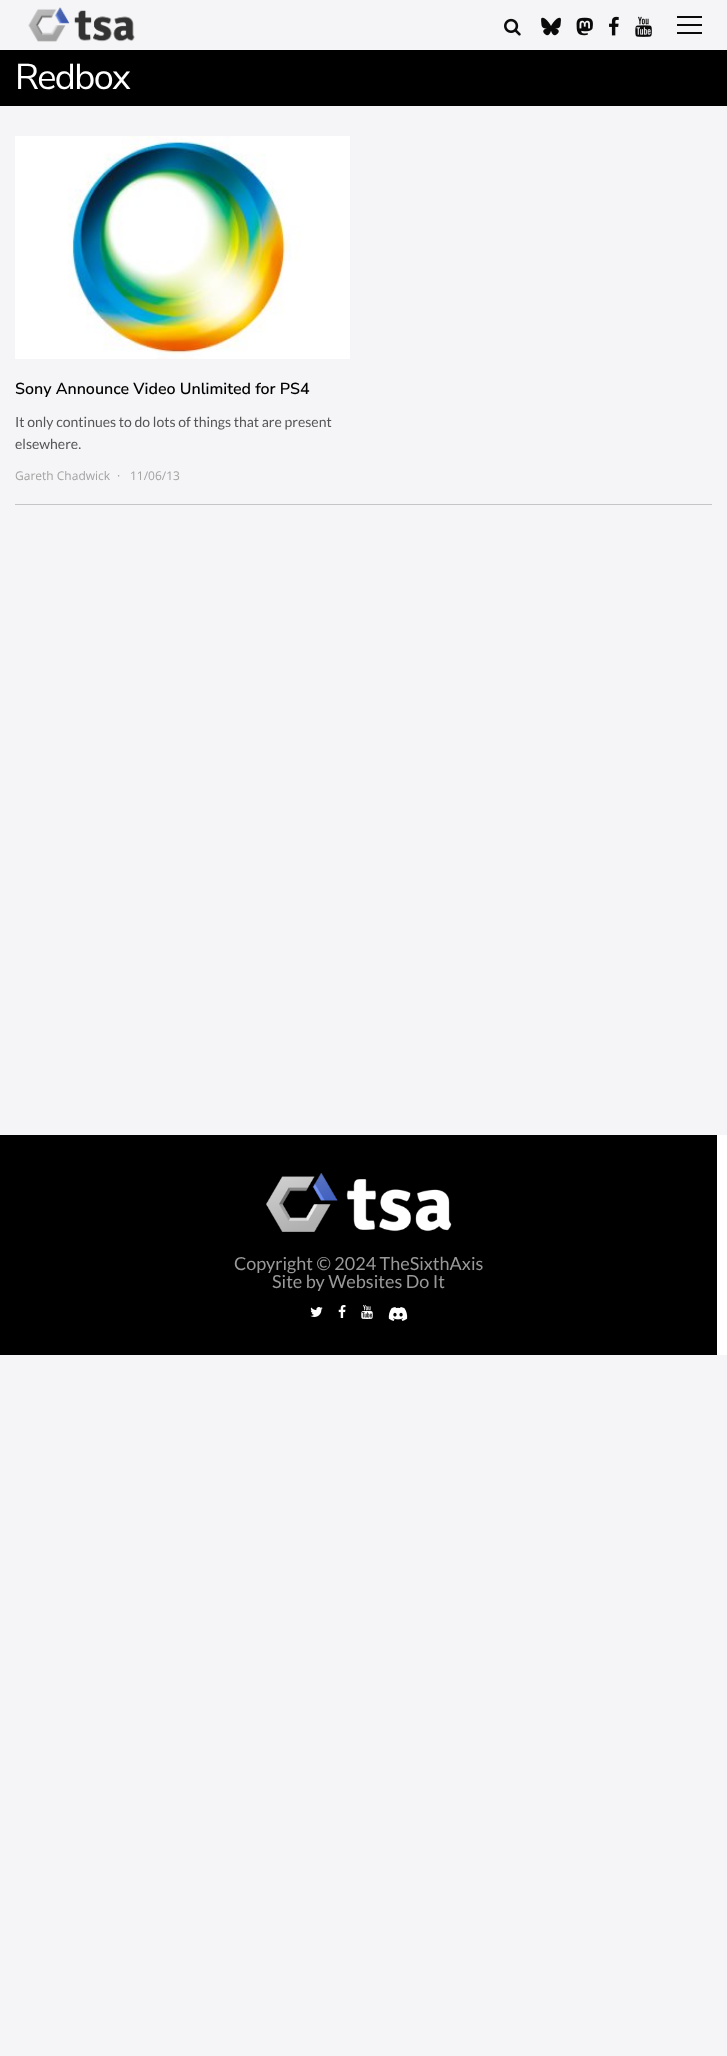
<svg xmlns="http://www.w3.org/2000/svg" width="727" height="2056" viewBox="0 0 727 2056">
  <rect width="100%" height="100%" fill="#f5f5f7"/>
  <image x="28" y="7" width="107" height="35" href="img/1.png"/>
  <image x="504" y="18" width="17" height="18" href="img/2.png"/>
  <image x="541" y="17" width="20" height="19" href="img/3.png"/>
  <image x="576" y="17" width="17" height="19" href="img/4.png"/>
  <image x="609" y="16" width="10" height="20" href="img/5.png"/>
  <image x="635" y="16" width="17" height="21" href="img/6.png"/>
  <path d="M677 24h25v2H677z" fill="#0a0a0a"/>
  <path d="M677 16h25v2H677z" fill="#0a0a0a"/>
  <path d="M677 32h25v2H677z" fill="#0a0a0a"/>
  <path d="M0 50h727v56H0z" fill="#000"/>
  <image x="15" y="136" width="335" height="223" href="img/7.png"/>
  <path d="M15 504h697v1H15z" fill="#c5c5c7"/>
  <path d="M0 1135h717v220H0z" fill="#000"/>
  <path d="M717 1135h10v220H717z" fill="#fff"/>
  <image x="266" y="1173" width="186" height="59" href="img/8.png"/>
  <image x="310" y="1307" width="13" height="10" href="img/9.png"/>
  <image x="338" y="1305" width="8" height="13" href="img/10.png"/>
  <image x="361" y="1305" width="12" height="14" href="img/11.png"/>
  <image x="388" y="1307" width="20" height="14" href="img/12.png"/>
  <text x="15" y="89" font-family="Nunito Sans" font-size="36" letter-spacing="-1.5" fill="#fff">Redbox</text>
  <text x="15" y="394" font-family="Nunito Sans" font-size="16" font-weight="600" fill="#000">Sony Announce Video Unlimited for PS4</text>
  <g font-family="Lato" font-size="14" fill="#555557">
    <text x="15" y="427">It only continues to do lots of things that are present</text>
    <text x="15" y="449">elsewhere.</text>
  </g>
  <g font-family="Open Sans" font-size="12" fill="#a2a2a2">
    <text x="15" y="480">Gareth Chadwick</text>
    <text x="117" y="480">·</text>
    <text x="130" y="480">11/06/13</text>
  </g>
  <g font-family="Lato" font-size="18" fill="#999">
    <text x="234" y="1270">Copyright © 2024 TheSixthAxis</text>
    <text x="272" y="1288">Site by Websites Do It</text>
  </g>
</svg>
